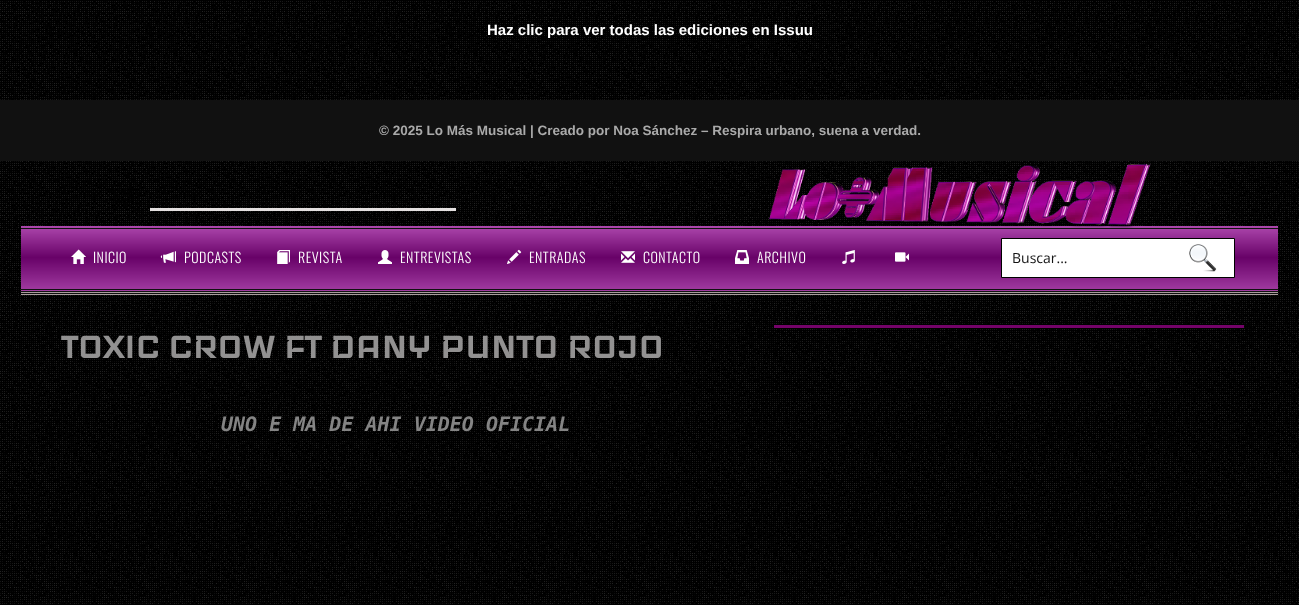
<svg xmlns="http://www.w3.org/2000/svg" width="1299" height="605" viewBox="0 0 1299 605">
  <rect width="100%" height="100%" fill="#000"/>
  <image x="0" y="1" width="1299" height="603" href="img/1.png"/>
  <path d="M0 100h1299v61H0z" fill="#111"/>
  <image x="114" y="189" width="27" height="15" href="img/2.png"/>
  <path d="M150 208h306v3H150z" fill="#e4e0e0"/>
  <path d="M21 226h1257v65H21z" fill="#8d038e"/>
  <image x="21" y="226" width="1257" height="68" href="img/4.png"/>
  <image x="769" y="164" width="382" height="64" href="img/3.png"/>
  <path d="M21 292h1257v1H21z" fill="#a99c9c"/>
  <path d="M21 294h1257v1H21z" fill="#a99c9c"/>
  <image x="71" y="249" width="15" height="15" href="img/5.png"/>
  <image x="160" y="251" width="16" height="12" href="img/6.png"/>
  <image x="277" y="250" width="13" height="14" href="img/7.png"/>
  <image x="378" y="250" width="14" height="14" href="img/8.png"/>
  <image x="507" y="249" width="15" height="15" href="img/9.png"/>
  <image x="621" y="251" width="14" height="12" href="img/10.png"/>
  <image x="735" y="250" width="14" height="14" href="img/11.png"/>
  <image x="842" y="250" width="13" height="14" href="img/12.png"/>
  <image x="895" y="252" width="14" height="10" href="img/13.png"/>
  <path d="M1001.5 238.5h233v39H1001.5z" fill="#fff" stroke="#000"/>
  <image x="1189" y="244" width="28" height="28" href="img/14.png"/>
  <path d="M774 325h470v3H774z" fill="#740369"/>
  <text x="487" y="35" font-family="Liberation Sans" font-size="15" font-weight="bold" fill="#fff">Haz clic para ver todas las ediciones en Issuu</text>
  <text x="379" y="135" font-family="Liberation Sans" font-size="13.5" font-weight="bold" fill="#aaa">© 2025 Lo Más Musical | Creado por Noa Sánchez – Respira urbano, suena a verdad.</text>
  <g font-family="Oswald" font-size="14" font-weight="300" letter-spacing="0.5" fill="#fff">
    <text x="93" y="263">INICIO</text>
    <text x="184" y="263">PODCASTS</text>
    <text x="298" y="263">REVISTA</text>
    <text x="400" y="263">ENTREVISTAS</text>
    <text x="529" y="263">ENTRADAS</text>
    <text x="643" y="263">CONTACTO</text>
    <text x="757" y="263">ARCHIVO</text>
  </g>
  <text x="1012" y="263" font-family="Open Sans" font-size="14" fill="#141414">Buscar...</text>
  <text x="61" y="358" font-family="Iceland" font-size="43" font-weight="bold" fill="#929191">TOXIC CROW FT DANY PUNTO ROJO</text>
  <text x="221" y="431" font-family="DejaVu Sans Mono" font-size="20" font-weight="bold" font-style="italic" fill="#848484">UNO E MA DE AHI VIDEO OFICIAL</text>
</svg>
